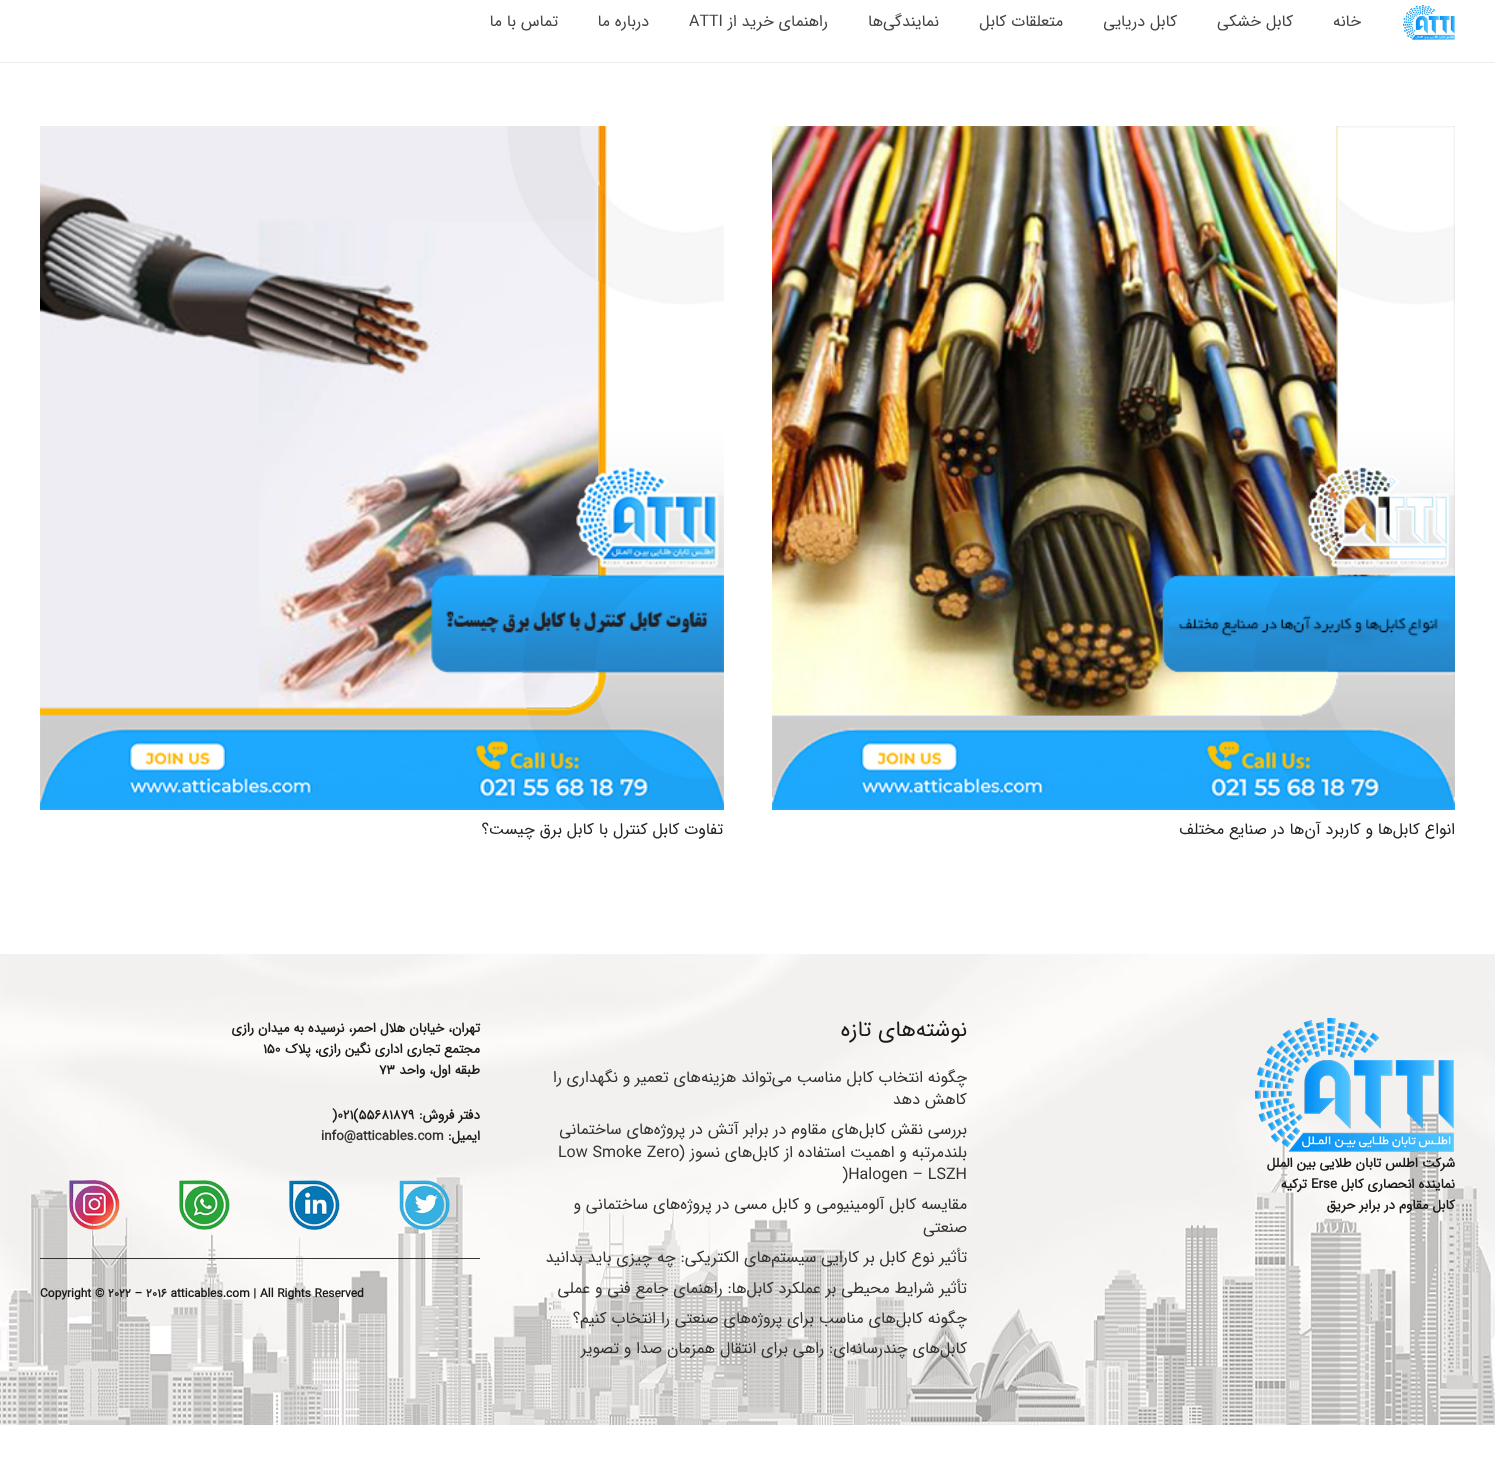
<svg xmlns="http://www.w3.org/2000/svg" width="1495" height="1465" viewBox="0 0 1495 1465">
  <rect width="100%" height="100%" fill="#fff"/>
  <path d="M0 62h1495v1H0z" fill="#ebebeb"/>
  <image x="1403" y="5" width="52" height="35" href="img/1.png"/>
  <image x="772" y="126" width="683" height="684" href="img/2.png"/>
  <image x="40" y="126" width="684" height="684" href="img/3.png"/>
  <image x="0" y="954" width="1495" height="471" href="img/4.png"/>
  <image x="1255" y="1018" width="199" height="134" href="img/5.png"/>
  <path d="M40 1258h440v1H40z" fill="#333"/>
  <image x="69" y="1180" width="51" height="50" href="img/6.png"/>
  <image x="399" y="1180" width="51" height="50" href="img/7.png"/>
  <image x="289" y="1180" width="51" height="50" href="img/8.png"/>
  <image x="179" y="1180" width="51" height="50" href="img/9.png"/>
  <g font-family="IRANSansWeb" font-size="16" direction="rtl" fill="#444">
    <text x="1361" y="26">خانه</text>
    <text x="1293" y="26">کابل خشکی</text>
    <text x="1177" y="26">کابل دریایی</text>
    <text x="1063" y="26">متعلقات کابل</text>
    <text x="939" y="26">نمایندگی</text>
    <text x="883" y="26">ها</text>
    <text x="828" y="26">راهنمای خرید از</text>
  </g>
  <text x="689" y="26" font-family="IRANSansWeb" font-size="16" fill="#444">ATTI</text>
  <g font-family="IRANSansWeb" font-size="16" direction="rtl" fill="#444">
    <text x="649" y="26">درباره ما</text>
    <text x="558" y="26">تماس با ما</text>
  </g>
  <g font-family="IRANSansWeb" font-size="16" direction="rtl" fill="#222">
    <text x="1455" y="834">انواع کابل‌ها و کاربرد آن‌ها در صنایع مختلف</text>
    <text x="723" y="834">تفاوت کابل کنترل با کابل برق چیست؟</text>
  </g>
  <g font-family="IRANSansWeb" font-size="13.3" font-weight="bold" direction="rtl" fill="#1a1a1a">
    <text x="1455" y="1167">شرکت اطلس تابان طلایی بین الملل</text>
    <text x="1455" y="1188">نماینده انحصاری کابل</text>
  </g>
  <text x="1311" y="1188" font-family="IRANSansWeb" font-size="13.3" font-weight="bold" fill="#1a1a1a">Erse</text>
  <g font-family="IRANSansWeb" font-size="13.3" font-weight="bold" direction="rtl" fill="#1a1a1a">
    <text x="1307" y="1188">ترکیه</text>
    <text x="1455" y="1209">کابل مقاوم در برابر حریق</text>
  </g>
  <text x="967" y="1036" font-family="IRANSansWeb" font-size="22" direction="rtl" fill="#1a1a1a">نوشته‌های تازه</text>
  <g font-family="IRANSansWeb" font-size="16" direction="rtl" fill="#333">
    <text x="967" y="1082">چگونه انتخاب کابل مناسب می‌تواند هزینه‌های تعمیر و نگهداری را</text>
    <text x="967" y="1104">کاهش دهد</text>
    <text x="967" y="1134">بررسی نقش کابل‌های مقاوم در برابر آتش در پروژه‌های ساختمانی</text>
    <text x="967" y="1157">بلندمرتبه و اهمیت استفاده از کابل‌های نسوز (</text>
  </g>
  <g font-family="IRANSansWeb" font-size="16" fill="#333">
    <text x="558" y="1157">Low Smoke Zero</text>
    <text x="842" y="1179">)Halogen – LSZH</text>
  </g>
  <g font-family="IRANSansWeb" font-size="16" direction="rtl" fill="#333">
    <text x="967" y="1209">مقایسه کابل آلومینیومی و کابل مسی در پروژه‌های ساختمانی و</text>
    <text x="967" y="1232">صنعتی</text>
    <text x="967" y="1262">تأثیر نوع کابل بر کارایی سیستم‌های الکتریکی: چه چیزی باید بدانید</text>
    <text x="967" y="1293">تأثیر شرایط محیطی بر عملکرد کابل‌ها: راهنمای جامع فنی و عملی</text>
    <text x="967" y="1323">چگونه کابل‌های مناسب برای پروژه‌های صنعتی را انتخاب کنیم؟</text>
    <text x="967" y="1353">کابل‌های چندرسانه‌ای: راهی برای انتقال همزمان صدا و تصویر</text>
  </g>
  <g font-family="IRANSansWeb" font-size="13.3" font-weight="bold" direction="rtl" fill="#1a1a1a">
    <text x="480" y="1032">تهران، خیابان هلال احمر، نرسیده به میدان رازی</text>
    <text x="480" y="1053">مجتمع تجاری اداری نگین رازی، پلاک</text>
  </g>
  <text x="263" y="1053" font-family="IRANSansWeb" font-size="13.3" font-weight="bold" fill="#1a1a1a">۱۵۰</text>
  <text x="480" y="1074" font-family="IRANSansWeb" font-size="13.3" font-weight="bold" direction="rtl" fill="#1a1a1a">طبقه اول، واحد</text>
  <text x="379" y="1074" font-family="IRANSansWeb" font-size="13.3" font-weight="bold" fill="#1a1a1a">۷۳</text>
  <text x="480" y="1119" font-family="IRANSansWeb" font-size="13.3" font-weight="bold" direction="rtl" fill="#1a1a1a">دفتر فروش:</text>
  <text x="332" y="1119" font-family="IRANSansWeb" font-size="13.3" font-weight="bold" fill="#1a1a1a">)۰۲۱(۵۵۶۸۱۸۷۹</text>
  <text x="480" y="1140" font-family="IRANSansWeb" font-size="13.3" font-weight="bold" direction="rtl" fill="#1a1a1a">ایمیل:</text>
  <text x="321" y="1140" font-family="IRANSansWeb" font-size="13.3" font-weight="bold" fill="#333">info@atticables.com</text>
  <text x="40" y="1297" font-family="IRANSansWeb" font-size="12" font-weight="bold" fill="#1a1a1a">Copyright © ۲۰۲۲ – ۲۰۱۶ atticables.com | All Rights Reserved</text>
</svg>
